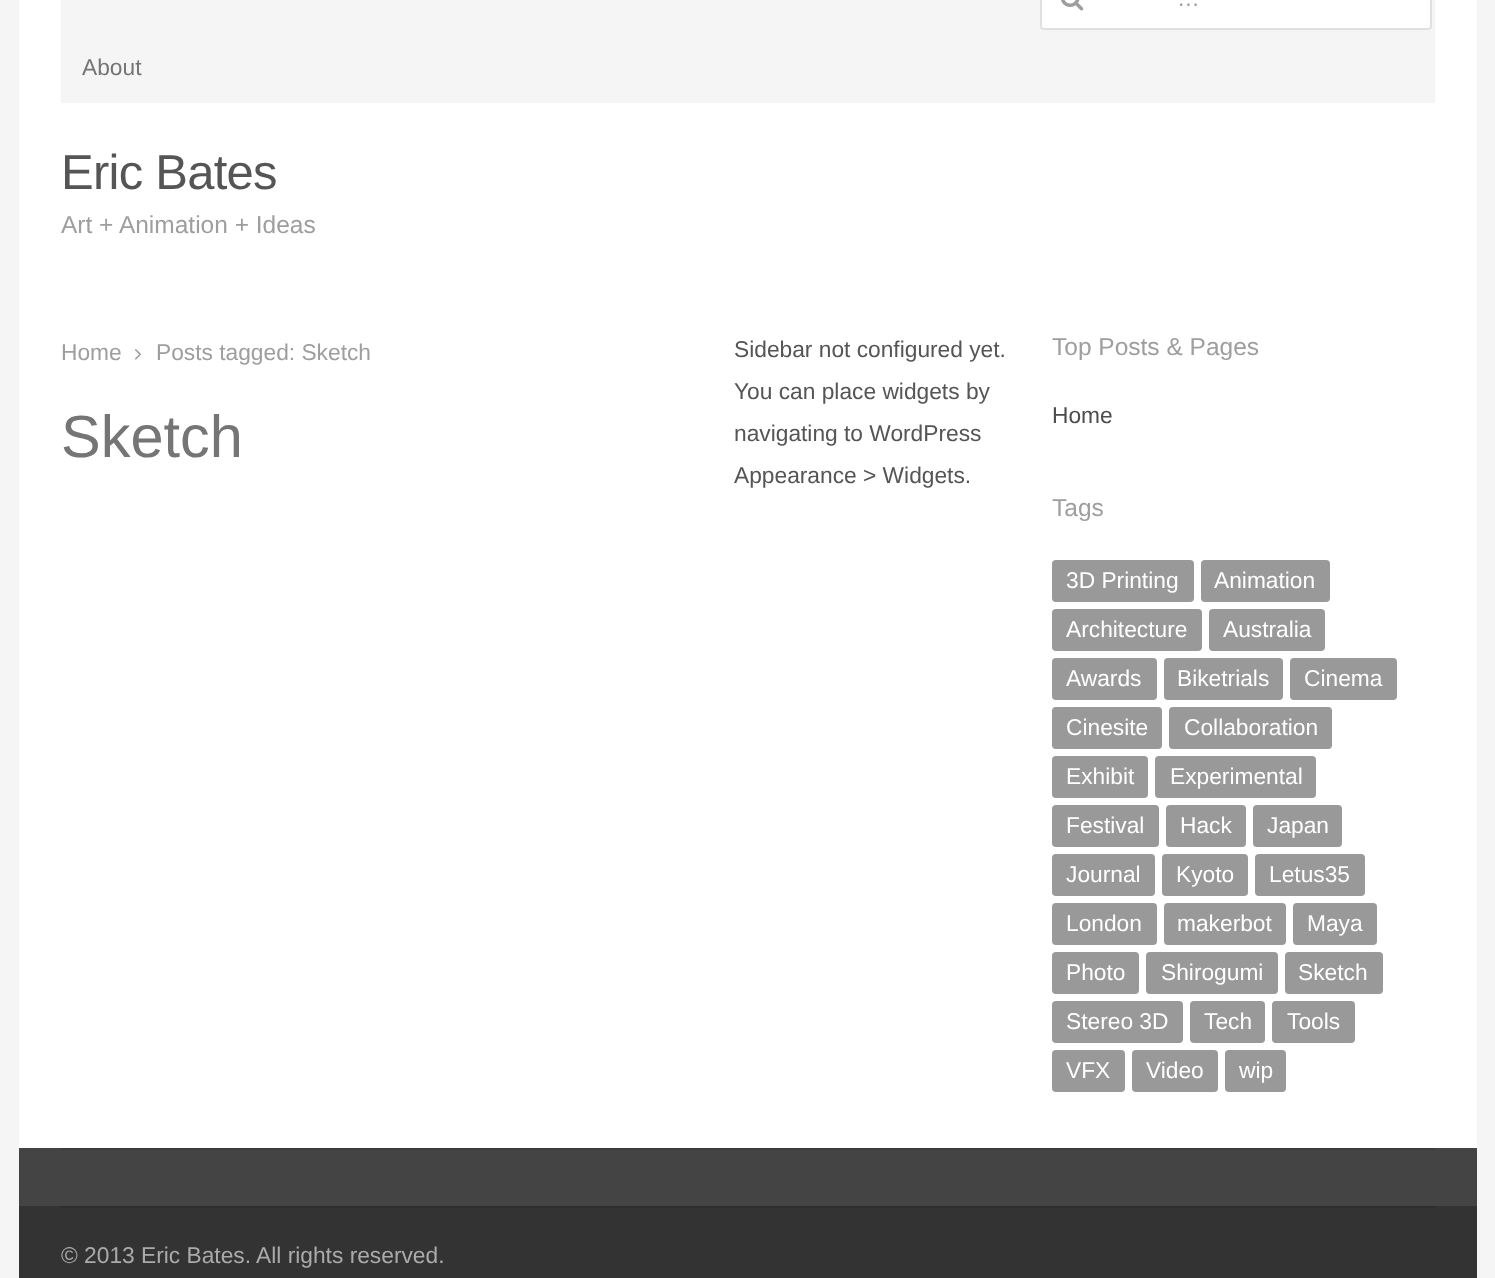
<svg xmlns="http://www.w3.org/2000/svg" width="1495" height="1278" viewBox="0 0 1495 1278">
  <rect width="100%" height="100%" fill="#f5f5f5"/>
  <path d="M19 0h1458v1148H19z" fill="#fff"/>
  <path d="M61 0h1374v103H61z" fill="#f5f5f5"/>
  <rect x="1040" y="-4" width="392" height="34" rx="4" fill="#fff"/>
  <rect x="1041" y="-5" width="390" height="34" rx="3" fill="none" stroke="#0000001f" stroke-width="2"/>
  <image x="1061" y="0" width="23" height="11" href="img/1.png"/>
  <image x="135" y="349" width="7" height="11" href="img/2.png"/>
  <rect x="1052" y="560" width="142" height="42" rx="4" fill="#999"/>
  <rect x="1201" y="560" width="129" height="42" rx="4" fill="#999"/>
  <rect x="1052" y="609" width="150" height="42" rx="4" fill="#999"/>
  <rect x="1209" y="609" width="116" height="42" rx="4" fill="#999"/>
  <rect x="1052" y="658" width="105" height="42" rx="4" fill="#999"/>
  <rect x="1164" y="658" width="119" height="42" rx="4" fill="#999"/>
  <rect x="1290" y="658" width="107" height="42" rx="4" fill="#999"/>
  <rect x="1052" y="707" width="110" height="42" rx="4" fill="#999"/>
  <rect x="1169" y="707" width="163" height="42" rx="4" fill="#999"/>
  <rect x="1052" y="756" width="96" height="42" rx="4" fill="#999"/>
  <rect x="1155" y="756" width="161" height="42" rx="4" fill="#999"/>
  <rect x="1052" y="805" width="107" height="42" rx="4" fill="#999"/>
  <rect x="1166" y="805" width="80" height="42" rx="4" fill="#999"/>
  <rect x="1253" y="805" width="89" height="42" rx="4" fill="#999"/>
  <rect x="1052" y="854" width="103" height="42" rx="4" fill="#999"/>
  <rect x="1162" y="854" width="86" height="42" rx="4" fill="#999"/>
  <rect x="1255" y="854" width="110" height="42" rx="4" fill="#999"/>
  <rect x="1052" y="903" width="105" height="42" rx="4" fill="#999"/>
  <rect x="1164" y="903" width="122" height="42" rx="4" fill="#999"/>
  <rect x="1293" y="903" width="84" height="42" rx="4" fill="#999"/>
  <rect x="1052" y="952" width="87" height="42" rx="4" fill="#999"/>
  <rect x="1146" y="952" width="132" height="42" rx="4" fill="#999"/>
  <rect x="1285" y="952" width="98" height="42" rx="4" fill="#999"/>
  <rect x="1052" y="1001" width="131" height="42" rx="4" fill="#999"/>
  <rect x="1190" y="1001" width="75" height="42" rx="4" fill="#999"/>
  <rect x="1272" y="1001" width="83" height="42" rx="4" fill="#999"/>
  <rect x="1052" y="1050" width="73" height="42" rx="4" fill="#999"/>
  <rect x="1132" y="1050" width="86" height="42" rx="4" fill="#999"/>
  <rect x="1225" y="1050" width="61" height="42" rx="4" fill="#999"/>
  <path d="M19 1148h1458v58H19z" fill="#444"/>
  <path d="M61 1148h1374v2H61z" fill="#3c3c3c"/>
  <path d="M19 1206h1458v72H19z" fill="#333"/>
  <path d="M61 1206h1374v2H61z" fill="#2d2d2d"/>
  <text x="1177" y="6" font-family="Liberation Sans" font-size="22.75" fill="#9e9e9e">…</text>
  <text x="82" y="75" font-family="Liberation Sans" font-size="22.75" fill="#757575">About</text>
  <text x="61" y="189" font-family="Liberation Sans" font-size="49" letter-spacing="-0.75" fill="#555">Eric Bates</text>
  <text x="61" y="233" font-family="Liberation Sans" font-size="24.5" fill="#9e9e9e">Art + Animation + Ideas</text>
  <g font-family="Liberation Sans" font-size="22.75" fill="#9e9e9e">
    <text x="61" y="360">Home</text>
    <text x="156" y="360">Posts tagged: Sketch</text>
  </g>
  <text x="61" y="457" font-family="Liberation Sans" font-size="59.5" fill="#757575">Sketch</text>
  <g font-family="Liberation Sans" font-size="22.75" fill="#555">
    <text x="734" y="357">Sidebar not configured yet.</text>
    <text x="734" y="399">You can place widgets by</text>
    <text x="734" y="441">navigating to WordPress</text>
    <text x="734" y="483">Appearance &gt; Widgets.</text>
  </g>
  <text x="1052" y="355" font-family="Liberation Sans" font-size="24.5" fill="#9e9e9e">Top Posts &amp; Pages</text>
  <text x="1052" y="423" font-family="Liberation Sans" font-size="22.75" fill="#4d4d4d">Home</text>
  <text x="1052" y="516" font-family="Liberation Sans" font-size="24.5" fill="#9e9e9e">Tags</text>
  <g font-family="Liberation Sans" font-size="22.75" fill="#fff">
    <text x="1066" y="588">3D Printing</text>
    <text x="1214" y="588">Animation</text>
    <text x="1066" y="637">Architecture</text>
    <text x="1223" y="637">Australia</text>
    <text x="1066" y="686">Awards</text>
    <text x="1177" y="686">Biketrials</text>
    <text x="1304" y="686">Cinema</text>
    <text x="1066" y="735">Cinesite</text>
    <text x="1184" y="735">Collaboration</text>
    <text x="1066" y="784">Exhibit</text>
    <text x="1170" y="784">Experimental</text>
    <text x="1066" y="833">Festival</text>
    <text x="1180" y="833">Hack</text>
    <text x="1267" y="833">Japan</text>
    <text x="1066" y="882">Journal</text>
    <text x="1176" y="882">Kyoto</text>
    <text x="1269" y="882">Letus35</text>
    <text x="1066" y="931">London</text>
    <text x="1177" y="931">makerbot</text>
    <text x="1307" y="931">Maya</text>
    <text x="1066" y="980">Photo</text>
    <text x="1161" y="980">Shirogumi</text>
    <text x="1298" y="980">Sketch</text>
    <text x="1066" y="1029">Stereo 3D</text>
    <text x="1204" y="1029">Tech</text>
    <text x="1287" y="1029">Tools</text>
    <text x="1066" y="1078">VFX</text>
    <text x="1146" y="1078">Video</text>
    <text x="1239" y="1078">wip</text>
  </g>
  <text x="61" y="1263" font-family="Liberation Sans" font-size="22.75" fill="#aaa">© 2013 Eric Bates. All rights reserved.</text>
</svg>
